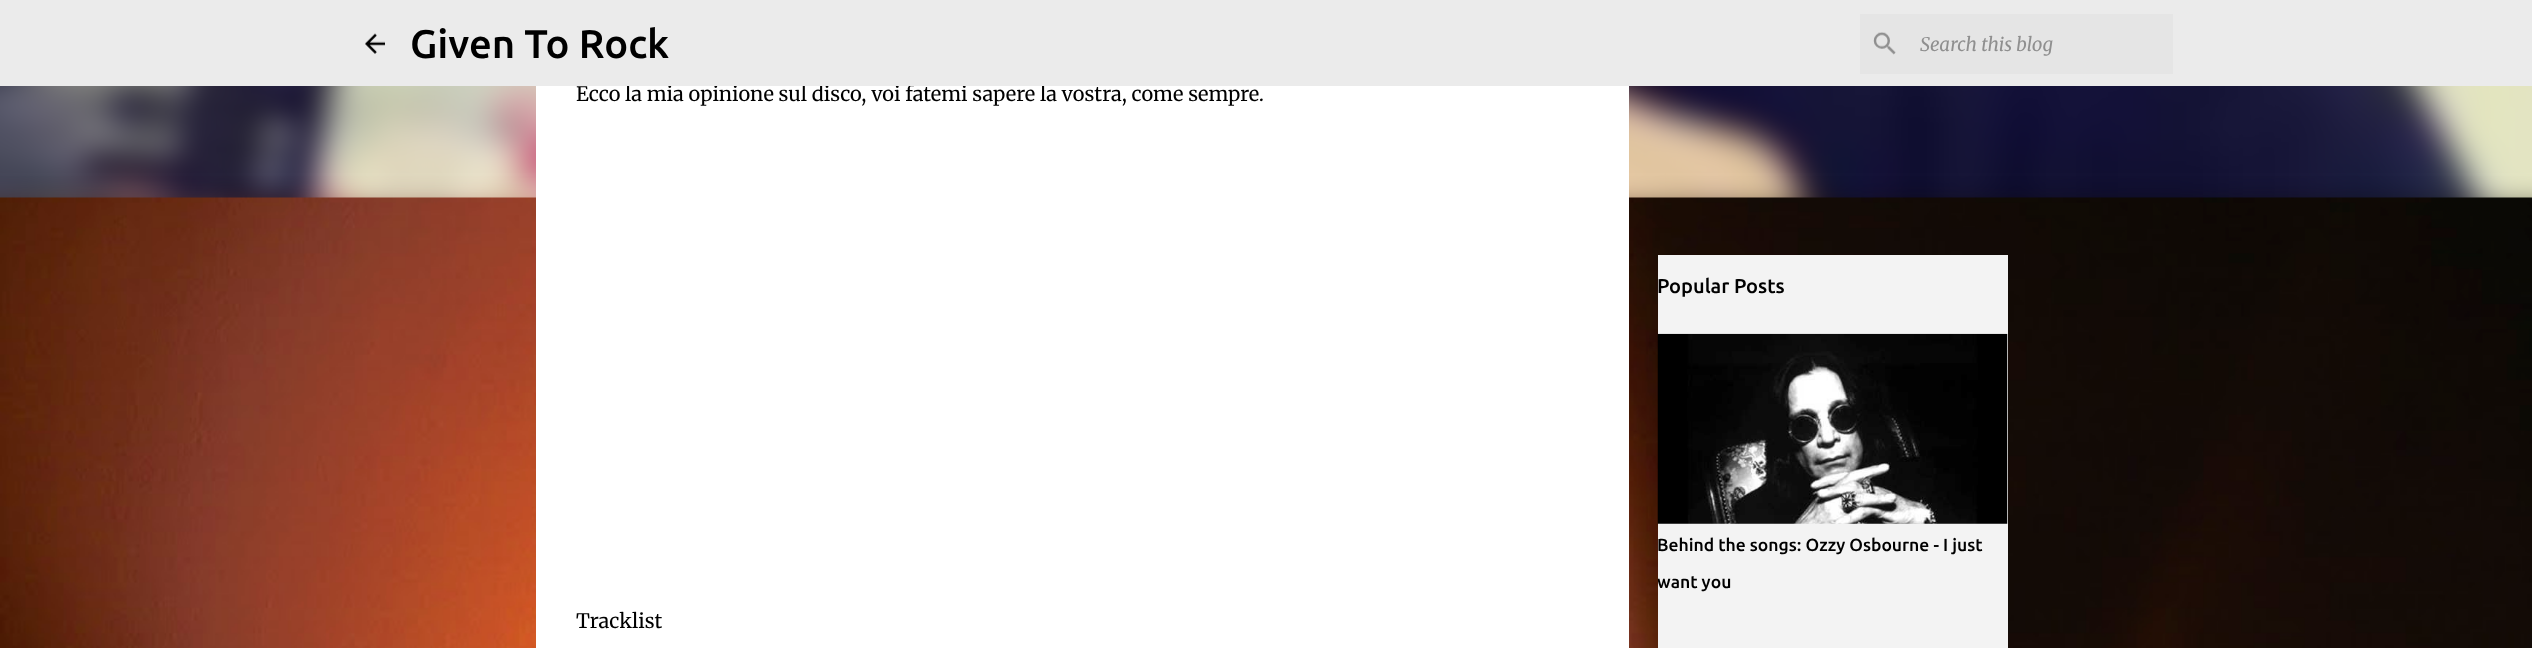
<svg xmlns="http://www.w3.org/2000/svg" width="2532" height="648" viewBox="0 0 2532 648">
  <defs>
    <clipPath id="clip1"><path d="M1658 255h350v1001H1658z"/></clipPath>
  </defs>
  <rect width="100%" height="100%" fill="#fff"/>
  <image x="0" y="176" width="2532" height="472" href="img/1.png"/>
  <image x="0" y="86" width="2532" height="112" href="img/5.png"/>
  <path d="M536 86h1093v562H536z" fill="#fff"/>
  <path d="M1658 255h350v393H1658z" fill="#f3f3f3"/>
  <image x="1657" y="333" width="351" height="191" href="img/4.png"/>
  <text x="576" y="101" font-family="Merriweather" font-size="20" font-weight="300" fill="#000">Ecco la mia opinione sul disco, voi fatemi sapere la vostra, come sempre.</text>
  <path d="M0 0h2532v86H0z" fill="#ebebeb"/>
  <path d="M1860 14h313v60H1860z" fill="#e5e5e5"/>
  <image x="1873" y="32" width="23" height="23" href="img/3.png"/>
  <text x="1920" y="51" font-family="Merriweather" font-size="18.75" font-style="italic" fill="#8f8f8f">Search this blog</text>
  <text x="410" y="58" font-family="Ubuntu" font-size="40" font-weight="500" fill="#000">Given To Rock</text>
  <image x="365" y="33" width="20" height="21" href="img/2.png"/>
  <text x="576" y="628" font-family="Merriweather" font-size="20" font-weight="300" fill="#000">Tracklist</text>
  <text x="1657" y="293" font-family="Ubuntu" font-size="20" font-weight="500" fill="#000">Popular Posts</text>
  <text x="1657" y="551" font-family="Ubuntu" font-size="17.5" font-weight="500" fill="#000">Behind the songs: Ozzy Osbourne - I just</text>
  <g clip-path="url(#clip1)">
    <text x="1657" y="588" font-family="Ubuntu" font-size="17.5" font-weight="500" fill="#000">want you</text>
  </g>
</svg>
